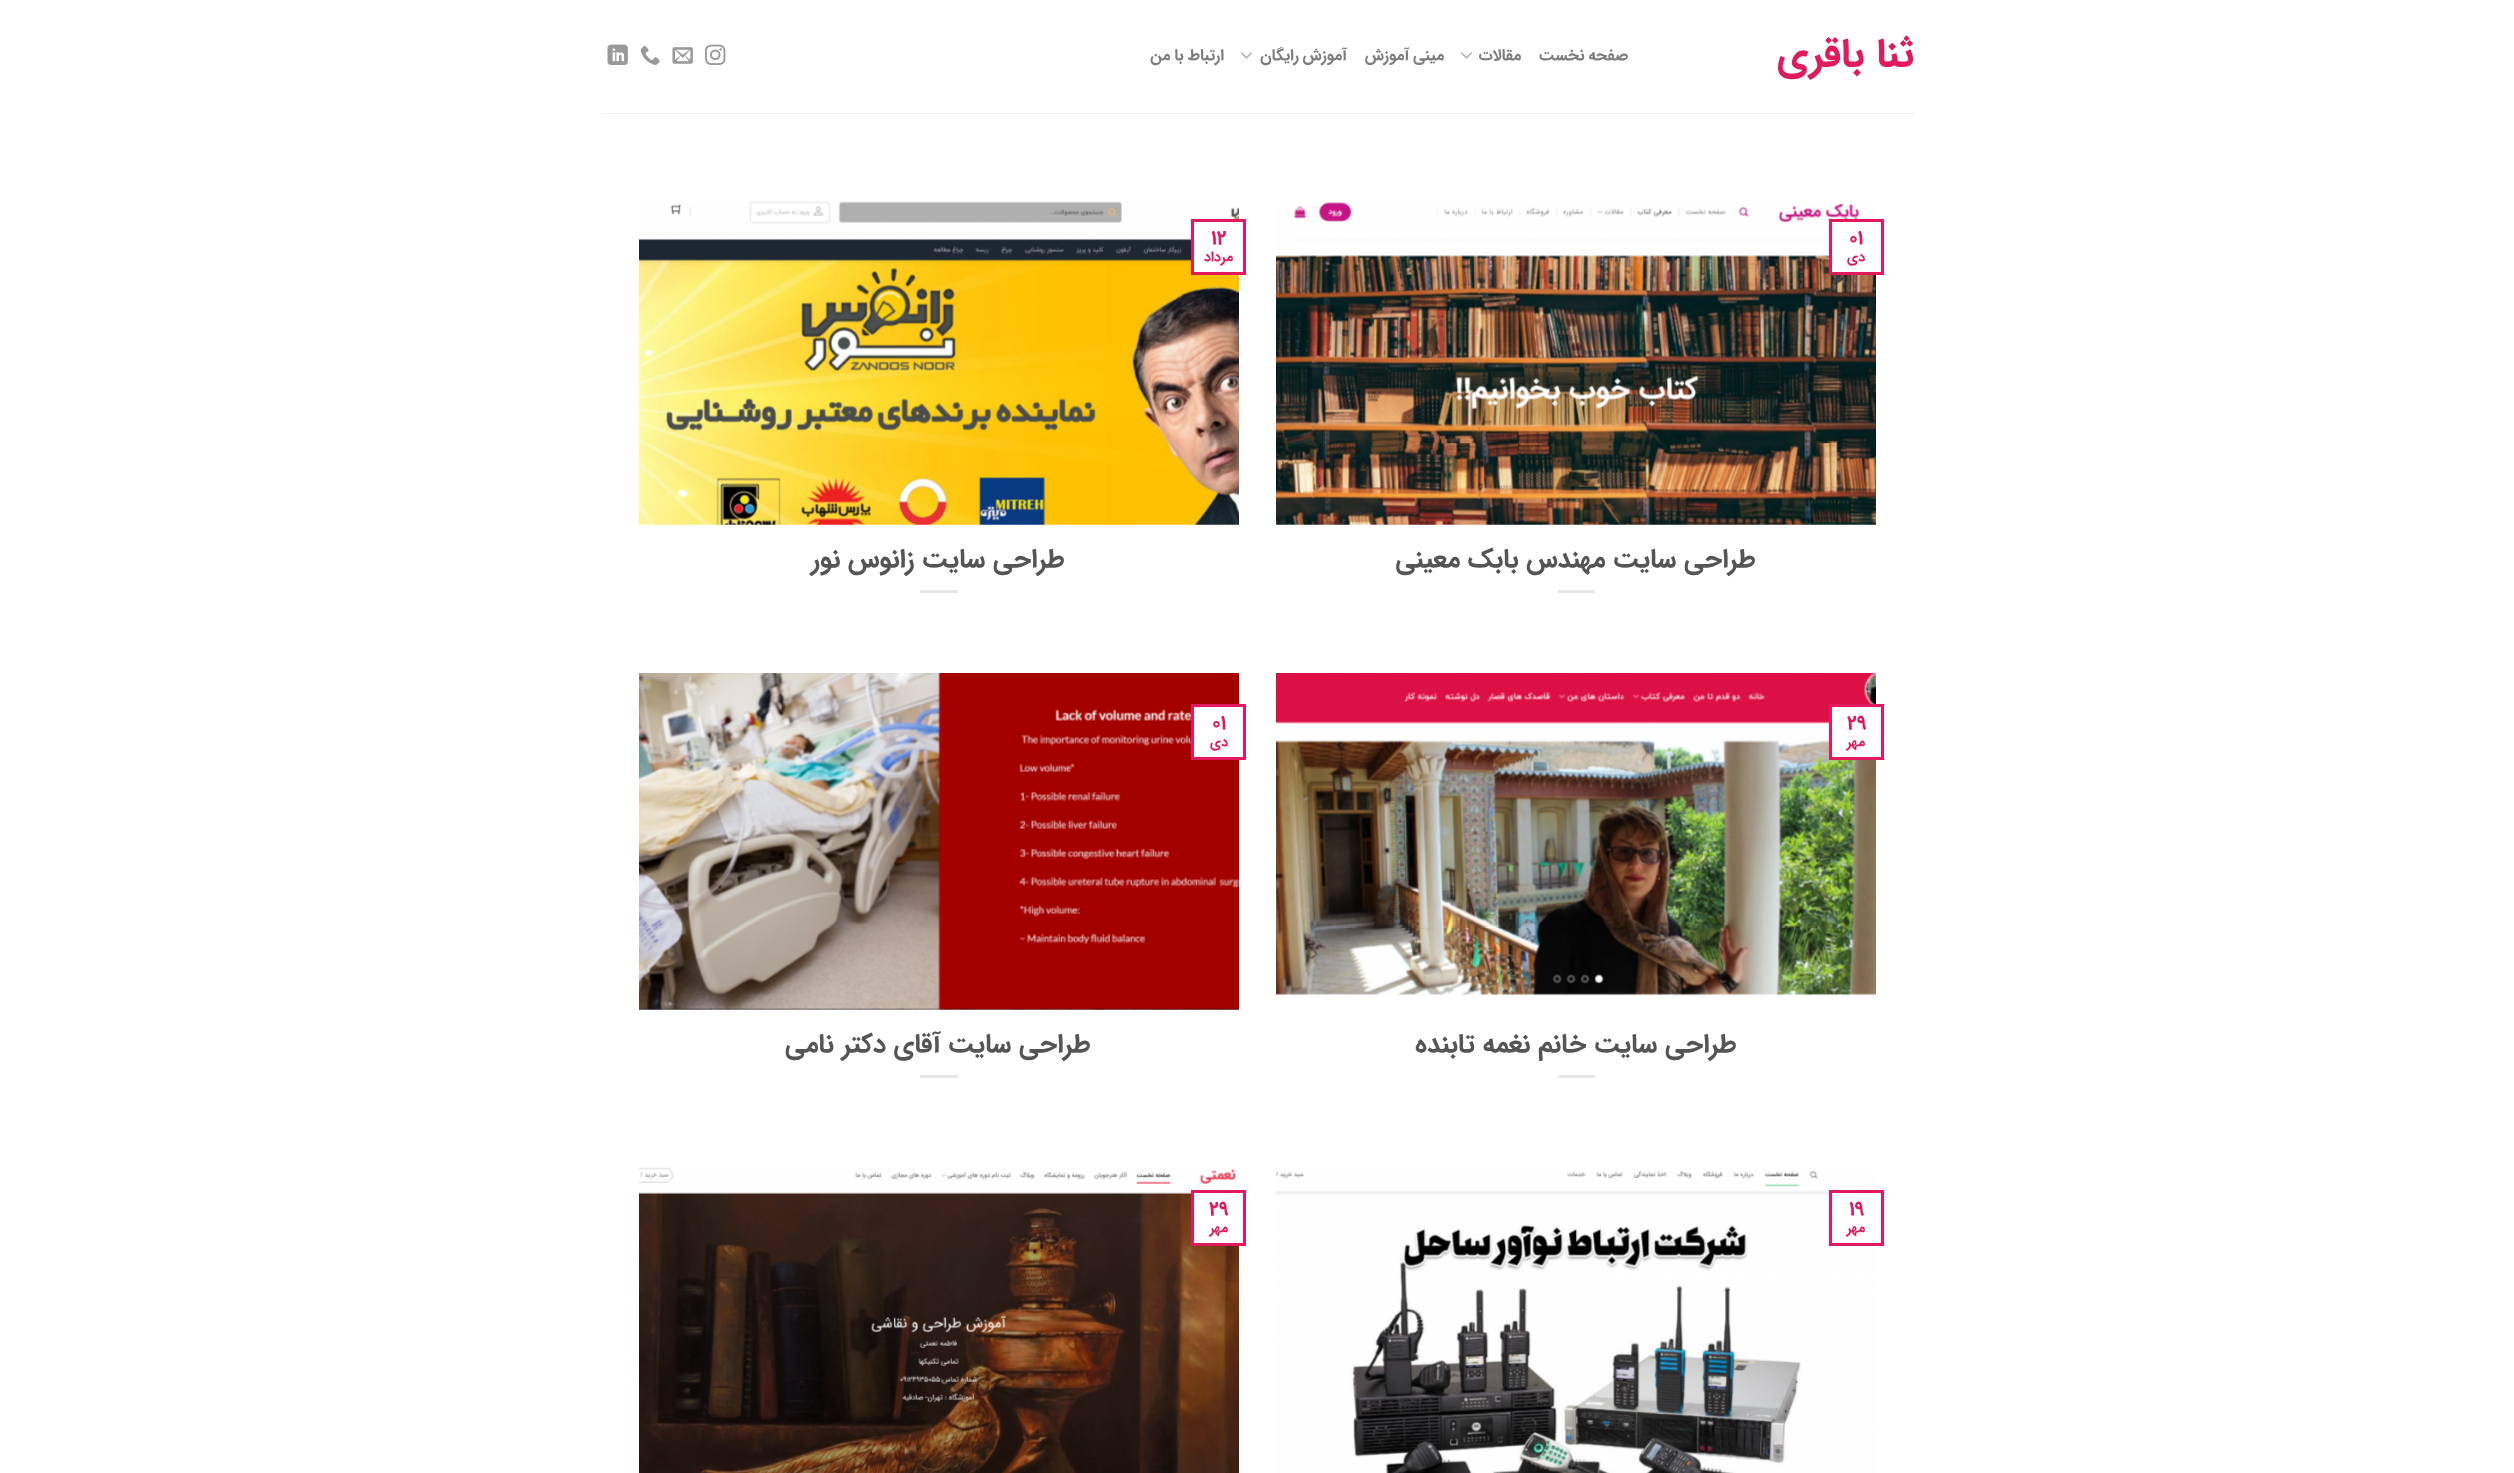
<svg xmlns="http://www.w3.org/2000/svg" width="2514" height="1473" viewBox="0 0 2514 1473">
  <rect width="100%" height="100%" fill="#fff"/>
  <image x="1461" y="52" width="11" height="7" href="img/1.png"/>
  <image x="1241" y="52" width="11" height="7" href="img/1.png"/>
  <image x="705" y="44" width="21" height="21" href="img/2.png"/>
  <image x="672" y="47" width="21" height="17" href="img/3.png"/>
  <image x="640" y="46" width="20" height="19" href="img/4.png"/>
  <image x="607" y="44" width="21" height="21" href="img/5.png"/>
  <path d="M601 113h1313v1H601z" fill="#f1f1f1"/>
  <image x="1276" y="202" width="600" height="323" href="img/6.png"/>
  <path d="M1832 239h44v33H1832z" fill="#fff"/>
  <path d="M1830.5 220.5h52v53H1830.5z" fill="none" stroke="#e01a5b" stroke-width="3"/>
  <path d="M1558 590h37v3H1558z" fill="#e6e6e6"/>
  <image x="639" y="201" width="600" height="324" href="img/7.png"/>
  <path d="M1194 222h45v50H1194z" fill="#fff"/>
  <path d="M1192.5 220.5h52v53H1192.5z" fill="none" stroke="#e01a5b" stroke-width="3"/>
  <path d="M920 590h38v3H920z" fill="#e6e6e6"/>
  <image x="1276" y="673" width="600" height="323" href="img/8.png"/>
  <path d="M1832 707h44v50H1832z" fill="#fff"/>
  <path d="M1830.5 705.5h52v53H1830.5z" fill="none" stroke="#e01a5b" stroke-width="3"/>
  <path d="M1558 1075h37v3H1558z" fill="#e6e6e6"/>
  <image x="639" y="673" width="600" height="337" href="img/9.png"/>
  <path d="M1194 707h45v50H1194z" fill="#fff"/>
  <path d="M1192.5 705.5h52v53H1192.5z" fill="none" stroke="#e01a5b" stroke-width="3"/>
  <path d="M920 1075h38v3H920z" fill="#e6e6e6"/>
  <image x="1276" y="1170" width="600" height="303" href="img/10.png"/>
  <path d="M1832 1193h44v3H1832z" fill="#fff"/>
  <path d="M1830.5 1191.5h52v53H1830.5z" fill="none" stroke="#e01a5b" stroke-width="3"/>
  <image x="639" y="1167" width="600" height="306" href="img/11.png"/>
  <path d="M1194 1193h45v50H1194z" fill="#fff"/>
  <path d="M1192.5 1191.5h52v53H1192.5z" fill="none" stroke="#e01a5b" stroke-width="3"/>
  <text x="1914" y="66" font-family="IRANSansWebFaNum" font-size="40" font-weight="bold" direction="rtl" fill="#e01a5b">ثنا باقری</text>
  <g font-family="IRANSansWebFaNum" font-size="16" font-weight="bold" letter-spacing="0.25" direction="rtl" fill="#7d7d7d">
    <text x="1628" y="60" word-spacing="-1">صفحه نخست</text>
    <text x="1521" y="60">مقالات</text>
    <text x="1444" y="60" word-spacing="-1">مینی آموزش</text>
    <text x="1347" y="60" word-spacing="-1">آموزش رایگان</text>
    <text x="1224" y="60" word-spacing="-1">ارتباط با من</text>
  </g>
  <text x="1849" y="244" font-family="IRANSansWebFaNum" font-size="20" font-weight="bold" fill="#e01a5b">۰۱</text>
  <text x="1865" y="261" font-family="IRANSansWebFaNum" font-size="14" font-weight="bold" direction="rtl" fill="#e01a5b">دی</text>
  <text x="1756" y="567" font-family="IRANSansWebFaNum" font-size="26.5" font-weight="bold" direction="rtl" fill="#555">طراحی سایت مهندس بابک معینی</text>
  <text x="1211" y="244" font-family="IRANSansWebFaNum" font-size="20" font-weight="bold" fill="#e01a5b">۱۲</text>
  <text x="1233" y="261" font-family="IRANSansWebFaNum" font-size="14" font-weight="bold" direction="rtl" fill="#e01a5b">مرداد</text>
  <text x="1065" y="567" font-family="IRANSansWebFaNum" font-size="26.5" font-weight="bold" direction="rtl" fill="#555">طراحی سایت زانوس نور</text>
  <text x="1847" y="729" font-family="IRANSansWebFaNum" font-size="20" font-weight="bold" fill="#e01a5b">۲۹</text>
  <text x="1865" y="746" font-family="IRANSansWebFaNum" font-size="14" font-weight="bold" direction="rtl" fill="#e01a5b">مهر</text>
  <text x="1737" y="1052" font-family="IRANSansWebFaNum" font-size="26.5" font-weight="bold" direction="rtl" fill="#555">طراحی سایت خانم نغمه تابنده</text>
  <text x="1212" y="729" font-family="IRANSansWebFaNum" font-size="20" font-weight="bold" fill="#e01a5b">۰۱</text>
  <text x="1228" y="746" font-family="IRANSansWebFaNum" font-size="14" font-weight="bold" direction="rtl" fill="#e01a5b">دی</text>
  <text x="1091" y="1052" font-family="IRANSansWebFaNum" font-size="26.5" font-weight="bold" direction="rtl" fill="#555">طراحی سایت آقای دکتر نامی</text>
  <text x="1849" y="1215" font-family="IRANSansWebFaNum" font-size="20" font-weight="bold" fill="#e01a5b">۱۹</text>
  <text x="1865" y="1232" font-family="IRANSansWebFaNum" font-size="14" font-weight="bold" direction="rtl" fill="#e01a5b">مهر</text>
  <text x="1209" y="1215" font-family="IRANSansWebFaNum" font-size="20" font-weight="bold" fill="#e01a5b">۲۹</text>
  <text x="1228" y="1232" font-family="IRANSansWebFaNum" font-size="14" font-weight="bold" direction="rtl" fill="#e01a5b">مهر</text>
</svg>
